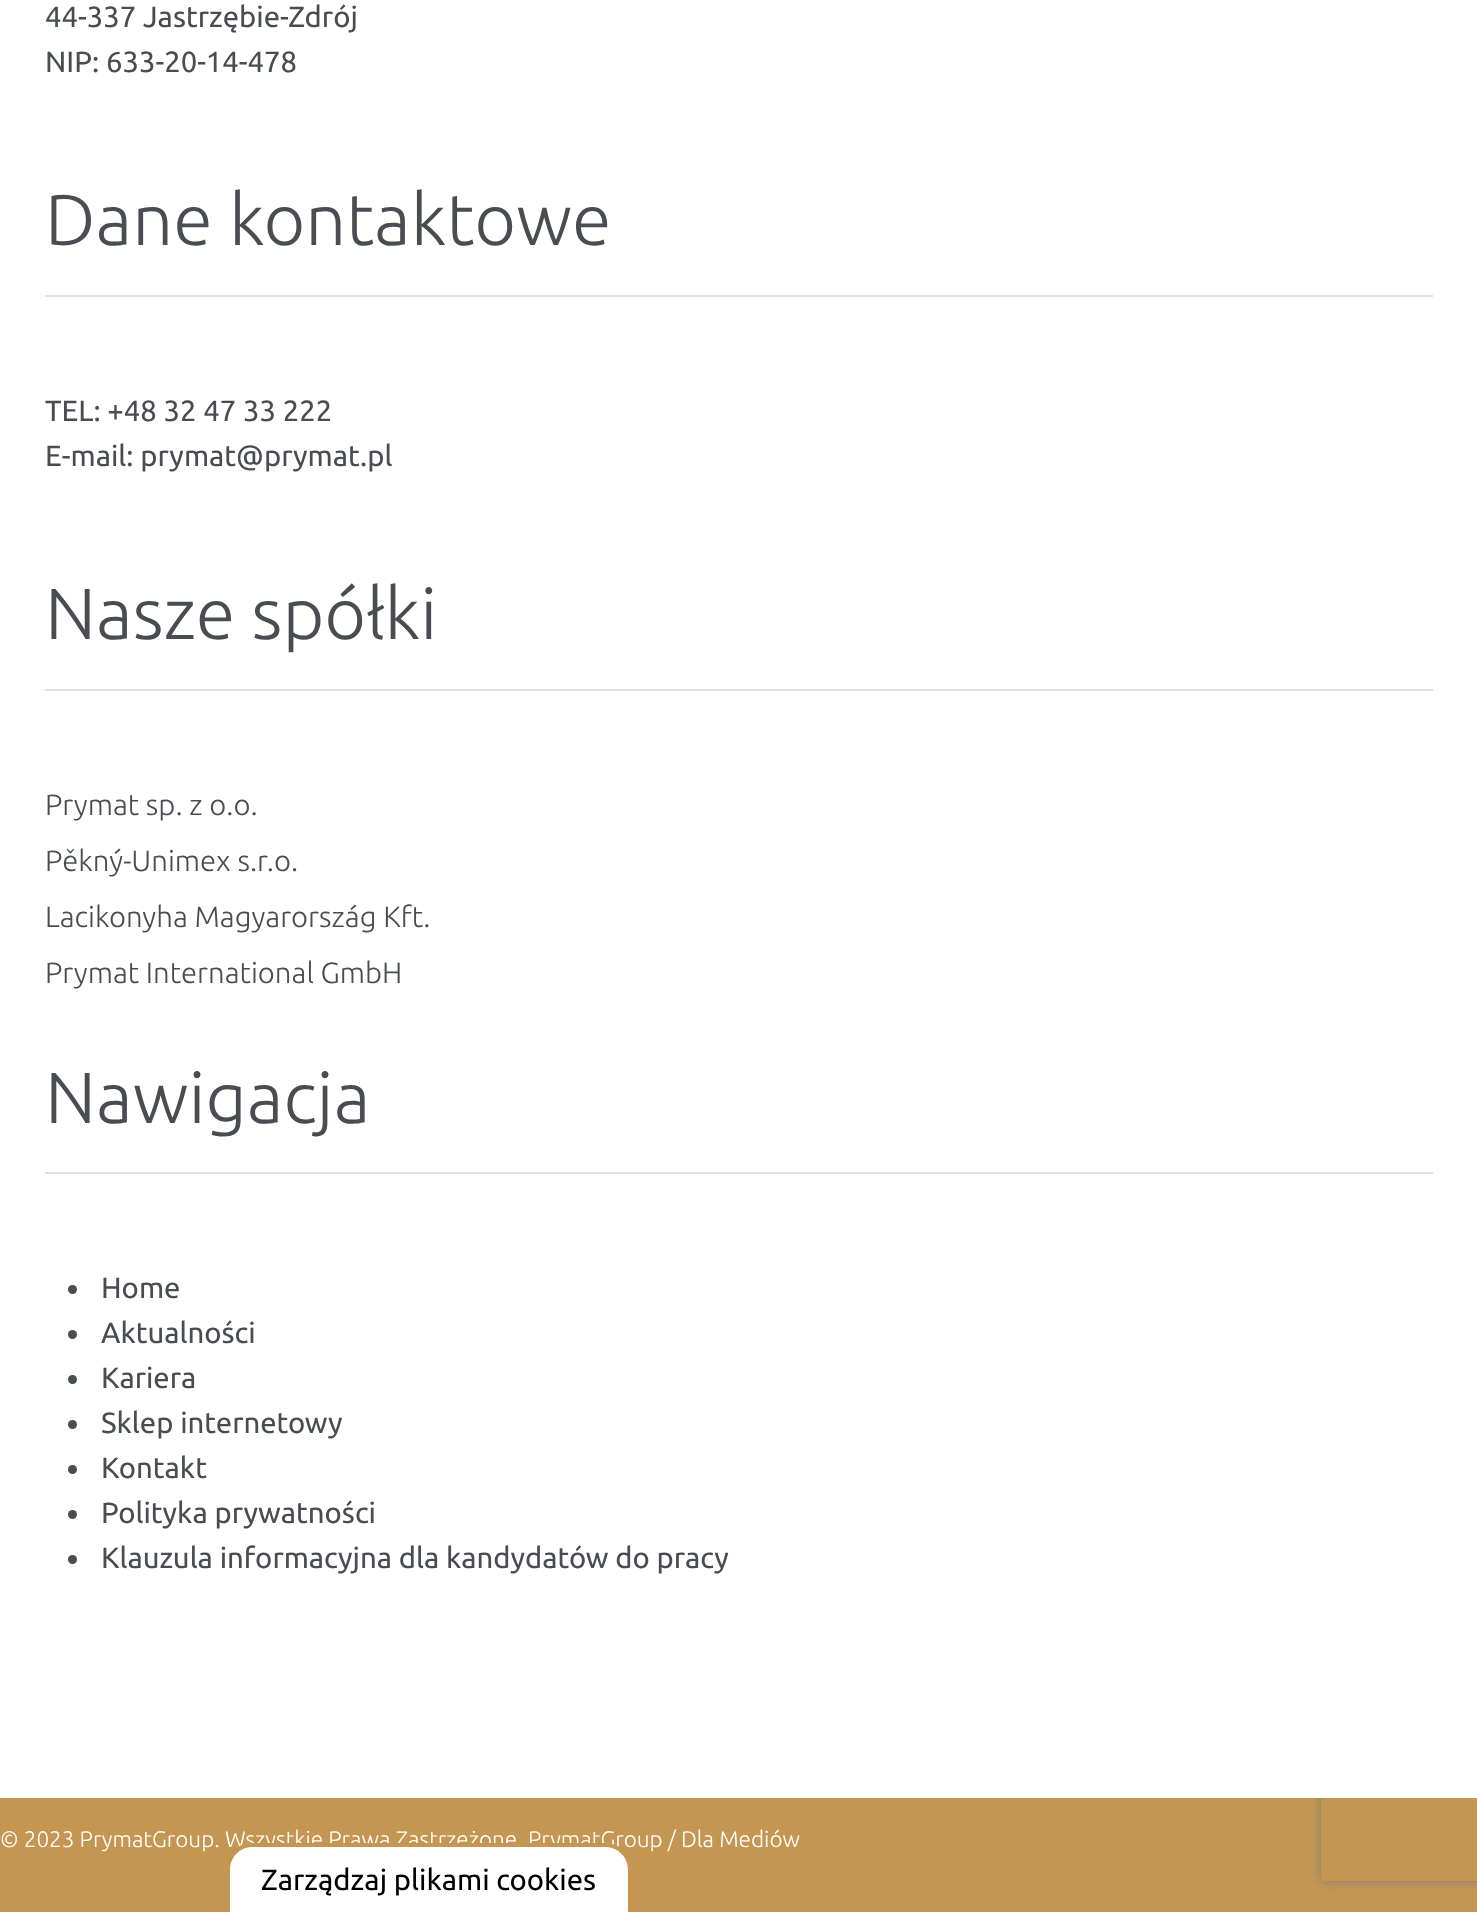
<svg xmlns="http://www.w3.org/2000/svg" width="1477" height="1912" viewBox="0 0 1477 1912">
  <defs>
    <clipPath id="clip1"><path d="M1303 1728H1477V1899H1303ZM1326 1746H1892C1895 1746 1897 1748 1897 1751V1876C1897 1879 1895 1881 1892 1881H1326C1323 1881 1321 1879 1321 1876V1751C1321 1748 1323 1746 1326 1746Z" clip-rule="evenodd"/></clipPath>
  </defs>
  <rect width="100%" height="100%" fill="#c49651"/>
  <g clip-path="url(#clip1)">
    <rect x="1321" y="1746" width="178" height="135" rx="5" fill="#808080" filter="blur(5.5px)"/>
  </g>
  <path d="M0 0h1477v1798H0z" fill="#fff"/>
  <path d="M45 295h1388v2H45z" fill="#e1e1e1"/>
  <path d="M45 689h1388v2H45z" fill="#e1e1e1"/>
  <path d="M45 1172h1388v2H45z" fill="#e1e1e1"/>
  <circle cx="72.5" cy="1289.5" r="4.5" fill="#494d52"/>
  <circle cx="72.5" cy="1334.5" r="4.5" fill="#494d52"/>
  <circle cx="72.5" cy="1379.5" r="4.5" fill="#494d52"/>
  <circle cx="72.5" cy="1424.5" r="4.5" fill="#494d52"/>
  <circle cx="72.5" cy="1469.5" r="4.5" fill="#494d52"/>
  <circle cx="72.5" cy="1514.5" r="4.5" fill="#494d52"/>
  <circle cx="72.5" cy="1559.5" r="4.5" fill="#494d52"/>
  <path d="M254 1843H603C619 1843 632 1856 632 1872V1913H225V1872C225 1856 238 1843 254 1843Z" fill="#fff"/>
  <g font-family="Ubuntu" font-size="29.25" fill="#494d52">
    <text x="45" y="27">44-337 Jastrzębie-Zdrój</text>
    <text x="45" y="72">NIP: 633-20-14-478</text>
  </g>
  <text x="45" y="245" font-family="Ubuntu" font-size="72" font-weight="300" fill="#494d52">Dane kontaktowe</text>
  <g font-family="Ubuntu" font-size="29.25" fill="#494d52">
    <text x="45" y="421">TEL: +48 32 47 33 222</text>
    <text x="45" y="466">E-mail: prymat@prymat.pl</text>
  </g>
  <text x="45" y="639" font-family="Ubuntu" font-size="72" font-weight="300" fill="#494d52">Nasze spółki</text>
  <g font-family="Ubuntu" font-size="29.25" font-weight="300" fill="#494d52">
    <text x="45" y="815">Prymat sp. z o.o.</text>
    <text x="45" y="871">Pěkný-Unimex s.r.o.</text>
    <text x="45" y="927">Lacikonyha Magyarország Kft.</text>
    <text x="45" y="983">Prymat International GmbH</text>
  </g>
  <text x="45" y="1123" font-family="Ubuntu" font-size="72" font-weight="300" fill="#494d52">Nawigacja</text>
  <g font-family="Ubuntu" font-size="29.25" fill="#494d52">
    <text x="101" y="1298">Home</text>
    <text x="101" y="1343">Aktualności</text>
    <text x="101" y="1388">Kariera</text>
    <text x="101" y="1433">Sklep internetowy</text>
    <text x="101" y="1478">Kontakt</text>
    <text x="101" y="1523">Polityka prywatności</text>
    <text x="101" y="1568">Klauzula informacyjna dla kandydatów do pracy</text>
  </g>
  <g font-family="Ubuntu" font-size="22.5" font-weight="300" fill="#fff">
    <text x="0" y="1847">© 2023 PrymatGroup. Wszystkie Prawa Zastrzeżone</text>
    <text x="528" y="1847">PrymatGroup / Dla Mediów</text>
  </g>
  <path d="M252 1843H605C620 1843 632 1855 632 1870V1912H225V1870C225 1855 237 1843 252 1843ZM252 1847H605C618 1847 628 1857 628 1870V1912H230V1870C230 1857 240 1847 252 1847Z" fill="#c49651" fill-rule="evenodd"/>
  <text x="261" y="1890" font-family="Ubuntu" font-size="29.25" fill="#000">Zarządzaj plikami cookies</text>
</svg>
